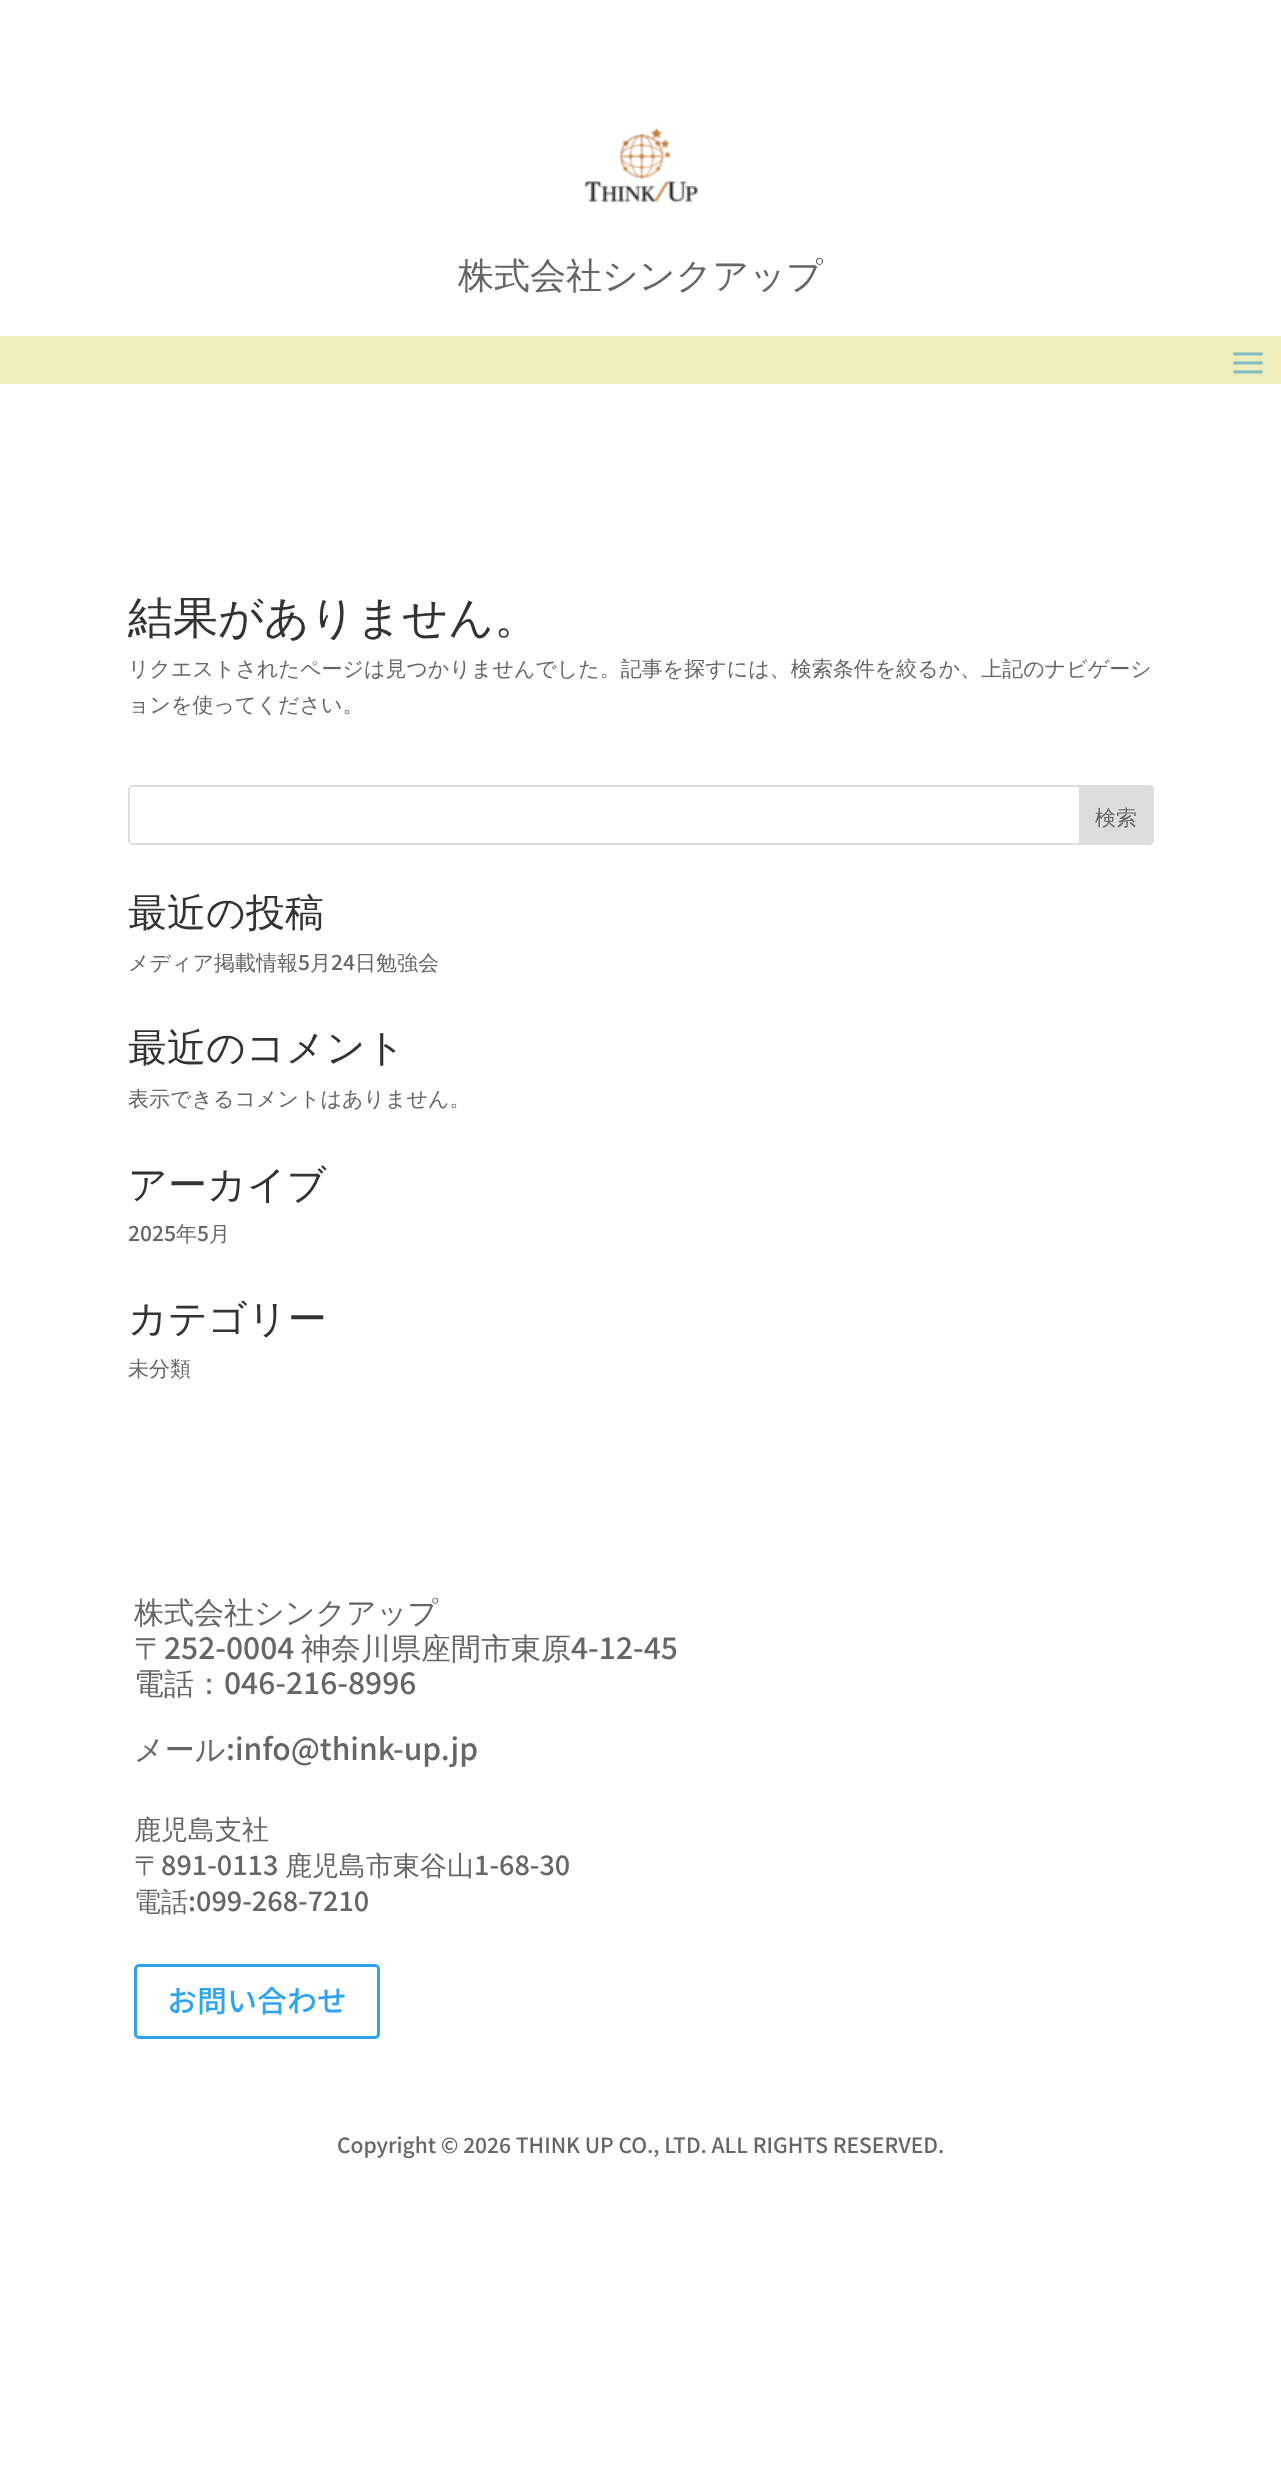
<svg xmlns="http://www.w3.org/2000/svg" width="1281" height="2465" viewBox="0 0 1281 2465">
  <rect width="100%" height="100%" fill="#fff"/>
  <image x="584" y="127" width="115" height="76" href="img/1.png"/>
  <path d="M0 336h1281v48H0z" fill="#eeefbd"/>
  <image x="1233" y="352" width="30" height="22" href="img/2.png"/>
  <rect x="129" y="786" width="1024" height="58" rx="4" fill="none" stroke="#ddd" stroke-width="2"/>
  <path d="M1080 786H1149C1151 786 1153 788 1153 790V840C1153 842 1151 844 1149 844H1080Z" fill="#ddd" stroke="#ddd" stroke-width="2"/>
  <rect x="135.5" y="1965.5" width="243" height="72" rx="3.5" fill="none" stroke="#2ea3f2" stroke-width="3"/>
  <text x="458" y="288" font-family="WenQuanYi Zen Hei" font-size="36" font-weight="500" fill="#666">株式会社シンクアップ</text>
  <text x="128" y="633" font-family="WenQuanYi Zen Hei" font-size="45" font-weight="500" fill="#333">結果がありません。</text>
  <g font-family="WenQuanYi Zen Hei" font-size="21" font-weight="500" fill="#666">
    <text x="128" y="676">リクエストされたページは見つかりませんでした。記事を探すには、検索条件を絞るか、上記のナビゲーシ</text>
    <text x="128" y="712">ョンを使ってください。</text>
    <text x="1095" y="825">検索</text>
  </g>
  <text x="128" y="926" font-family="WenQuanYi Zen Hei" font-size="39" font-weight="500" fill="#333">最近の投稿</text>
  <text x="128" y="970" font-family="WenQuanYi Zen Hei" font-size="21" font-weight="500" fill="#666">メディア掲載情報</text>
  <text x="298" y="970" font-family="Noto Sans JP" font-size="21" font-weight="100" fill="#666">5</text>
  <text x="310" y="970" font-family="WenQuanYi Zen Hei" font-size="21" font-weight="500" fill="#666">月</text>
  <text x="331" y="970" font-family="Noto Sans JP" font-size="21" font-weight="100" fill="#666">24</text>
  <text x="355" y="970" font-family="WenQuanYi Zen Hei" font-size="21" font-weight="500" fill="#666">日勉強会</text>
  <text x="128" y="1061" font-family="WenQuanYi Zen Hei" font-size="39" font-weight="500" fill="#333">最近のコメント</text>
  <text x="128" y="1106" font-family="WenQuanYi Zen Hei" font-size="21" font-weight="500" fill="#666">表示できるコメントはありません。</text>
  <text x="128" y="1198" font-family="WenQuanYi Zen Hei" font-size="39" font-weight="500" fill="#333">アーカイブ</text>
  <text x="128" y="1241" font-family="Noto Sans JP" font-size="21" font-weight="100" fill="#666">2025</text>
  <text x="176" y="1241" font-family="WenQuanYi Zen Hei" font-size="21" font-weight="500" fill="#666">年</text>
  <text x="197" y="1241" font-family="Noto Sans JP" font-size="21" font-weight="100" fill="#666">5</text>
  <text x="209" y="1241" font-family="WenQuanYi Zen Hei" font-size="21" font-weight="500" fill="#666">月</text>
  <text x="128" y="1332" font-family="WenQuanYi Zen Hei" font-size="39" font-weight="500" fill="#333">カテゴリー</text>
  <text x="128" y="1376" font-family="WenQuanYi Zen Hei" font-size="21" font-weight="500" fill="#666">未分類</text>
  <g font-family="WenQuanYi Zen Hei" font-size="30" font-weight="500" fill="#666">
    <text x="134" y="1623">株式会社シンクアップ</text>
    <text x="134" y="1659">〒</text>
  </g>
  <text x="164" y="1659" font-family="Noto Sans JP" font-size="30" font-weight="100" fill="#666">252-0004</text>
  <text x="301" y="1659" font-family="WenQuanYi Zen Hei" font-size="30" font-weight="500" fill="#666">神奈川県座間市東原</text>
  <text x="571" y="1659" font-family="Noto Sans JP" font-size="30" font-weight="100" fill="#666">4-12-45</text>
  <text x="134" y="1694" font-family="WenQuanYi Zen Hei" font-size="30" font-weight="500" fill="#666">電話：</text>
  <text x="224" y="1694" font-family="Noto Sans JP" font-size="30" font-weight="100" fill="#666">046-216-8996</text>
  <text x="134" y="1760" font-family="WenQuanYi Zen Hei" font-size="30" font-weight="500" fill="#666">メール</text>
  <text x="226" y="1760" font-family="Noto Sans JP" font-size="30" font-weight="100" fill="#666">:info@think-up.jp</text>
  <g font-family="WenQuanYi Zen Hei" font-size="27" font-weight="500" fill="#666">
    <text x="134" y="1839">鹿児島支社</text>
    <text x="134" y="1875">〒</text>
  </g>
  <text x="161" y="1875" font-family="Noto Sans JP" font-size="27" font-weight="100" fill="#666">891-0113</text>
  <text x="285" y="1875" font-family="WenQuanYi Zen Hei" font-size="27" font-weight="500" fill="#666">鹿児島市東谷山</text>
  <text x="474" y="1875" font-family="Noto Sans JP" font-size="27" font-weight="100" fill="#666">1-68-30</text>
  <text x="134" y="1911" font-family="WenQuanYi Zen Hei" font-size="27" font-weight="500" fill="#666">電話</text>
  <text x="188" y="1911" font-family="Noto Sans JP" font-size="27" font-weight="100" fill="#666">:099-268-7210</text>
  <text x="167" y="2012" font-family="Noto Sans JP" font-size="30" font-weight="500" fill="#2ea3f2">お問い合わせ</text>
  <text x="337" y="2153" font-family="Noto Sans JP" font-size="21" font-weight="100" fill="#666">Copyright © 2026 THINK UP CO., LTD. ALL RIGHTS RESERVED.</text>
</svg>
